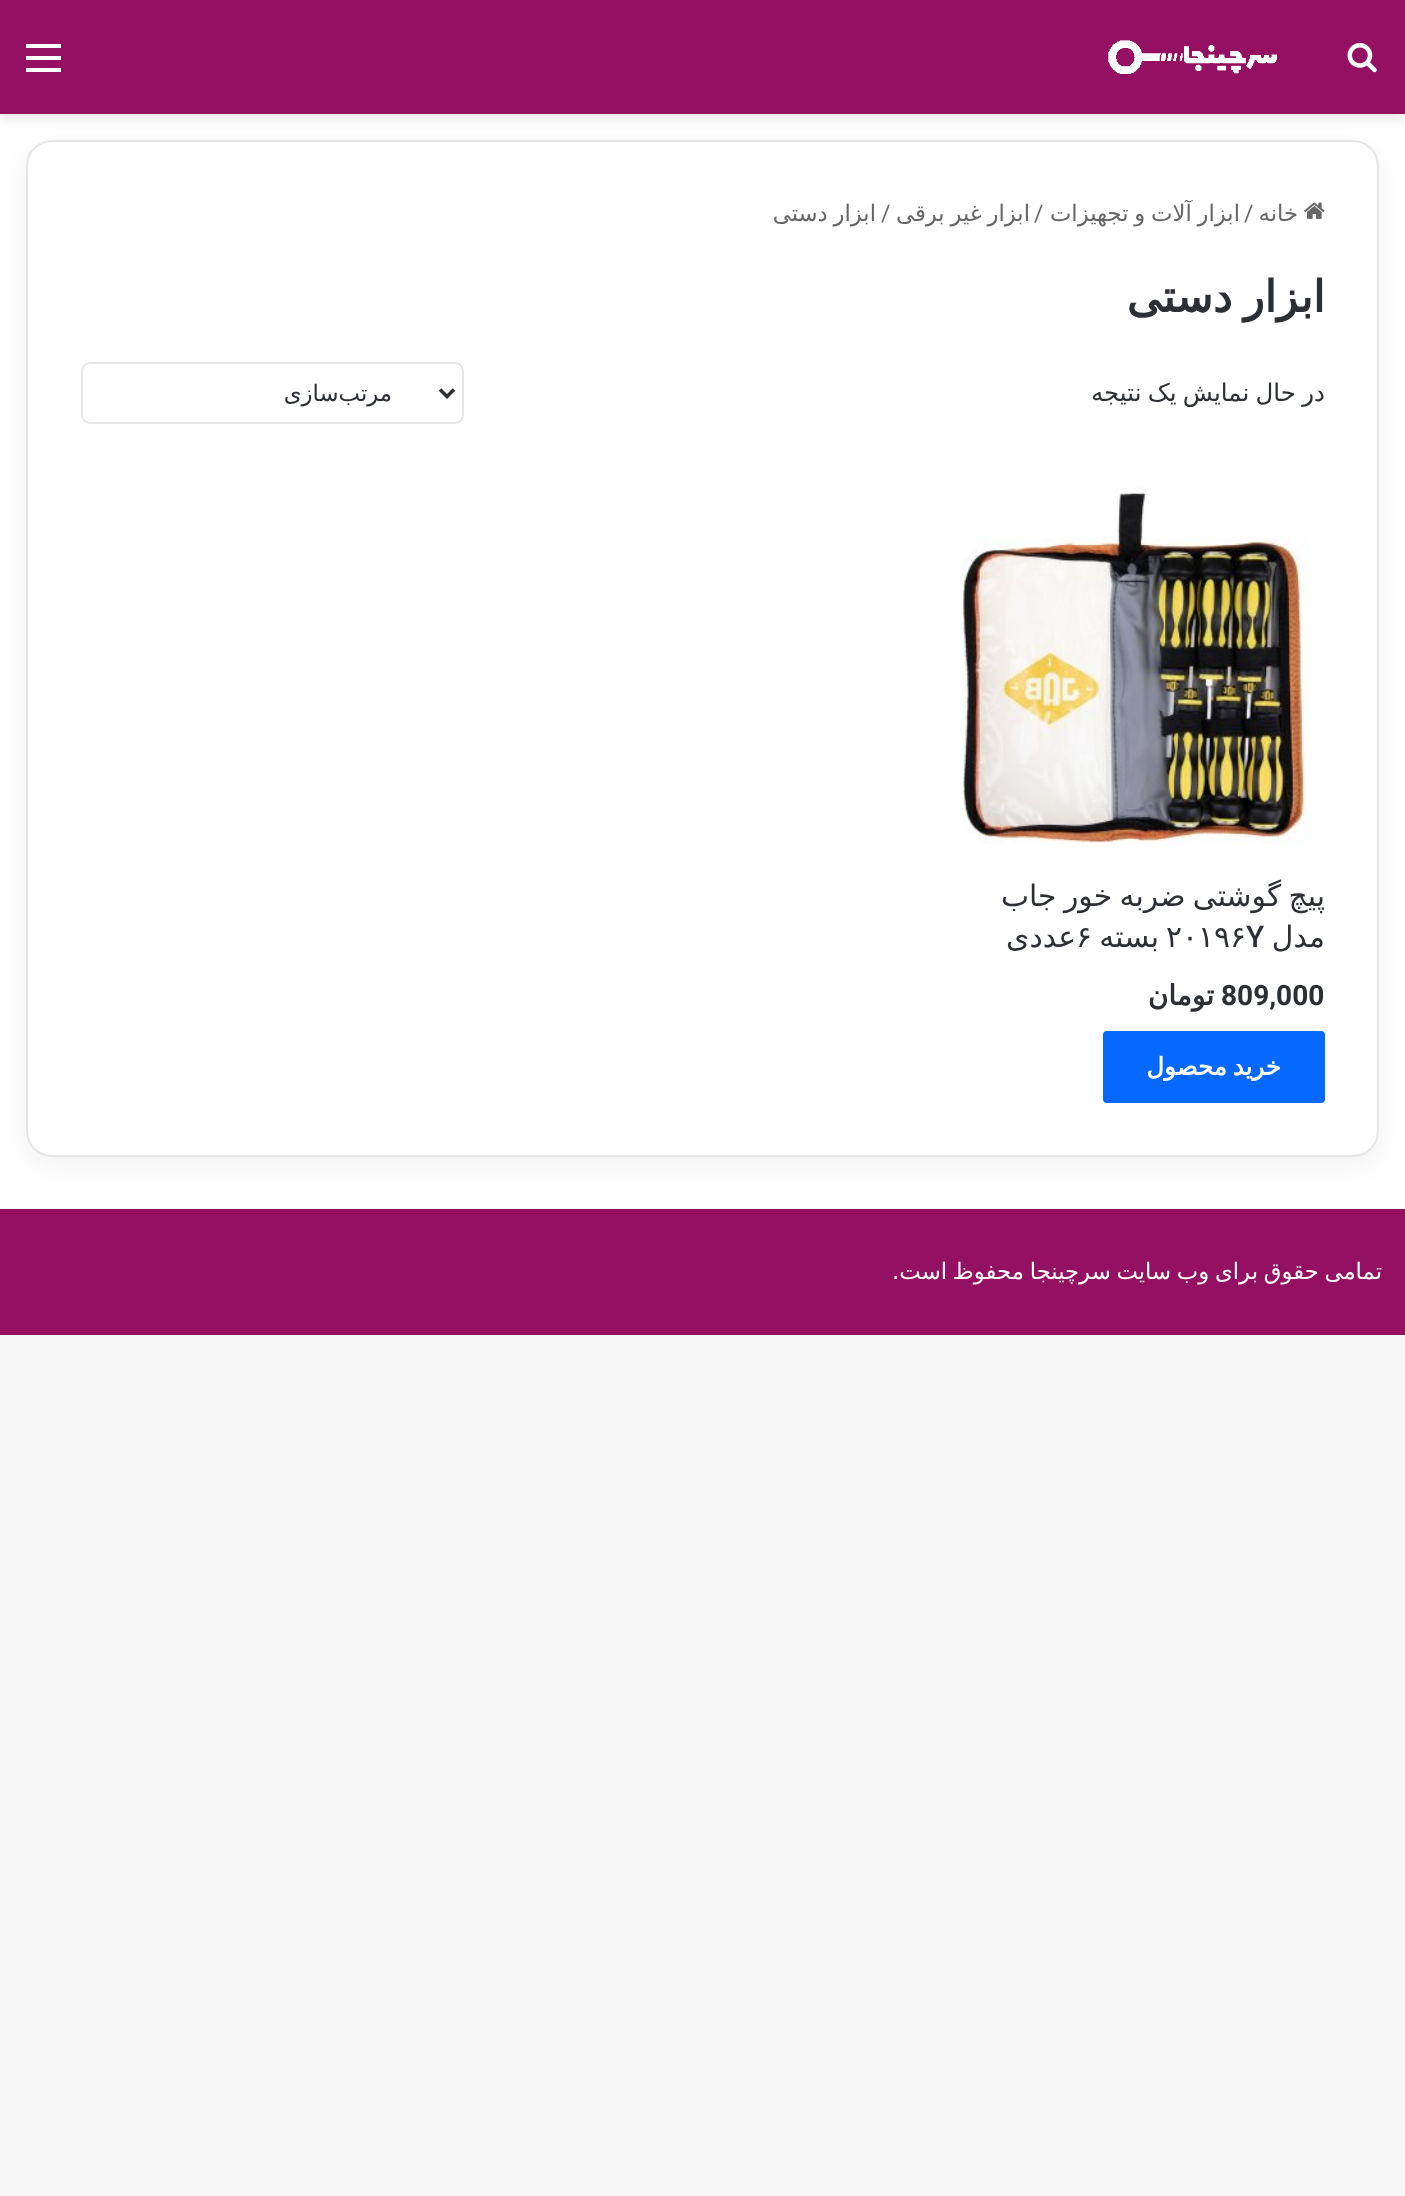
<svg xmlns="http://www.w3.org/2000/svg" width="1405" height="2196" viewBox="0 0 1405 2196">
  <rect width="100%" height="100%" fill="#f7f7f7"/>
  <path d="M0 114h1405v1095H0z" fill="#fff"/>
  <path d="M0 5h1405v114H0z" fill="#0000001a" filter="blur(6px)"/>
  <rect x="26" y="149" width="1353" height="1017" rx="26" fill="#0000000d" filter="blur(13px)"/>
  <path d="M0 0h1405v114H0z" fill="#941063"/>
  <image x="1347" y="43" width="30" height="30" href="img/1.png"/>
  <image x="1108" y="40" width="169" height="34" href="img/2.png"/>
  <path d="M26 56h35v4H26z" fill="#fff"/>
  <path d="M26 44h35v4H26z" fill="#fff"/>
  <path d="M26 68h35v4H26z" fill="#fff"/>
  <rect x="26" y="140" width="1353" height="1017" rx="26" fill="#fff"/>
  <rect x="27" y="141" width="1351" height="1015" rx="25" fill="none" stroke="#0000001a" stroke-width="2"/>
  <image x="1304" y="202" width="21" height="17" href="img/3.png"/>
  <rect x="82" y="363" width="381" height="60" rx="8" fill="none" stroke="#e6e6e6" stroke-width="2"/>
  <path d="M440 389.5L447 396.5L454 389.5" fill="none" stroke="#2c2f34" stroke-width="3.5"/>
  <image x="942" y="476" width="383" height="383" href="img/4.png"/>
  <rect x="1103" y="1031" width="222" height="72" rx="4" fill="#0669ff"/>
  <path d="M0 1209h1405v126H0z" fill="#941063"/>
  <text x="1298" y="221" font-family="DejaVu Sans" font-size="22.75" direction="rtl" fill="#666">خانه</text>
  <text x="1244" y="221" font-family="Roboto" font-size="22.75" fill="#666">/</text>
  <text x="1240" y="221" word-spacing="-1.5" font-family="DejaVu Sans" font-size="22.75" direction="rtl" fill="#666">ابزار آلات و تجهیزات</text>
  <text x="1034" y="221" font-family="Roboto" font-size="22.75" fill="#666">/</text>
  <text x="1030" y="221" word-spacing="-1.5" font-family="DejaVu Sans" font-size="22.75" direction="rtl" fill="#666">ابزار غیر برقی</text>
  <text x="881" y="221" font-family="Roboto" font-size="22.75" fill="#666">/</text>
  <text x="876" y="221" word-spacing="-1.5" font-family="DejaVu Sans" font-size="22.75" direction="rtl" fill="#666">ابزار دستی</text>
  <text x="1325" y="312" word-spacing="-3" font-family="DejaVu Sans" font-size="43.75" font-weight="bold" direction="rtl" fill="#2c2f34">ابزار دستی</text>
  <text x="1325" y="401" word-spacing="-1.5" font-family="DejaVu Sans" font-size="24.5" direction="rtl" fill="#2c2f34">در حال نمایش یک نتیجه</text>
  <text x="392" y="401" font-family="DejaVu Sans" font-size="22.75" direction="rtl" fill="#2c2f34">مرتب‌سازی</text>
  <g font-family="DejaVu Sans" font-size="29.75" direction="rtl" fill="#2c2f34">
    <text x="1325" y="906" word-spacing="-2">پیچ گوشتی ضربه خور جاب</text>
    <text x="1325" y="947">مدل</text>
  </g>
  <text x="1246" y="947" font-family="Roboto" font-size="29.75" font-weight="500" fill="#2c2f34">Y</text>
  <text x="1166" y="947" font-family="DejaVu Sans" font-size="29.75" fill="#2c2f34">۲۰۱۹۶</text>
  <text x="1159" y="947" font-family="DejaVu Sans" font-size="29.75" direction="rtl" fill="#2c2f34">بسته</text>
  <text x="1076" y="947" font-family="DejaVu Sans" font-size="29.75" fill="#2c2f34">۶</text>
  <text x="1076" y="947" font-family="DejaVu Sans" font-size="29.75" direction="rtl" fill="#2c2f34">عددی</text>
  <text x="1221" y="1005" font-family="Roboto" font-size="28" font-weight="bold" fill="#2c2f34">809,000</text>
  <text x="1214" y="1005" font-family="DejaVu Sans" font-size="28" font-weight="bold" direction="rtl" fill="#2c2f34">تومان</text>
  <text x="1281" y="1075" word-spacing="-2" font-family="DejaVu Sans" font-size="24.5" font-weight="bold" direction="rtl" fill="#fff">خرید محصول</text>
  <text x="1382" y="1279" word-spacing="-1.5" font-family="DejaVu Sans" font-size="22.75" direction="rtl" fill="#fff">تمامی حقوق برای وب سایت سرچینجا محفوظ است.</text>
</svg>
